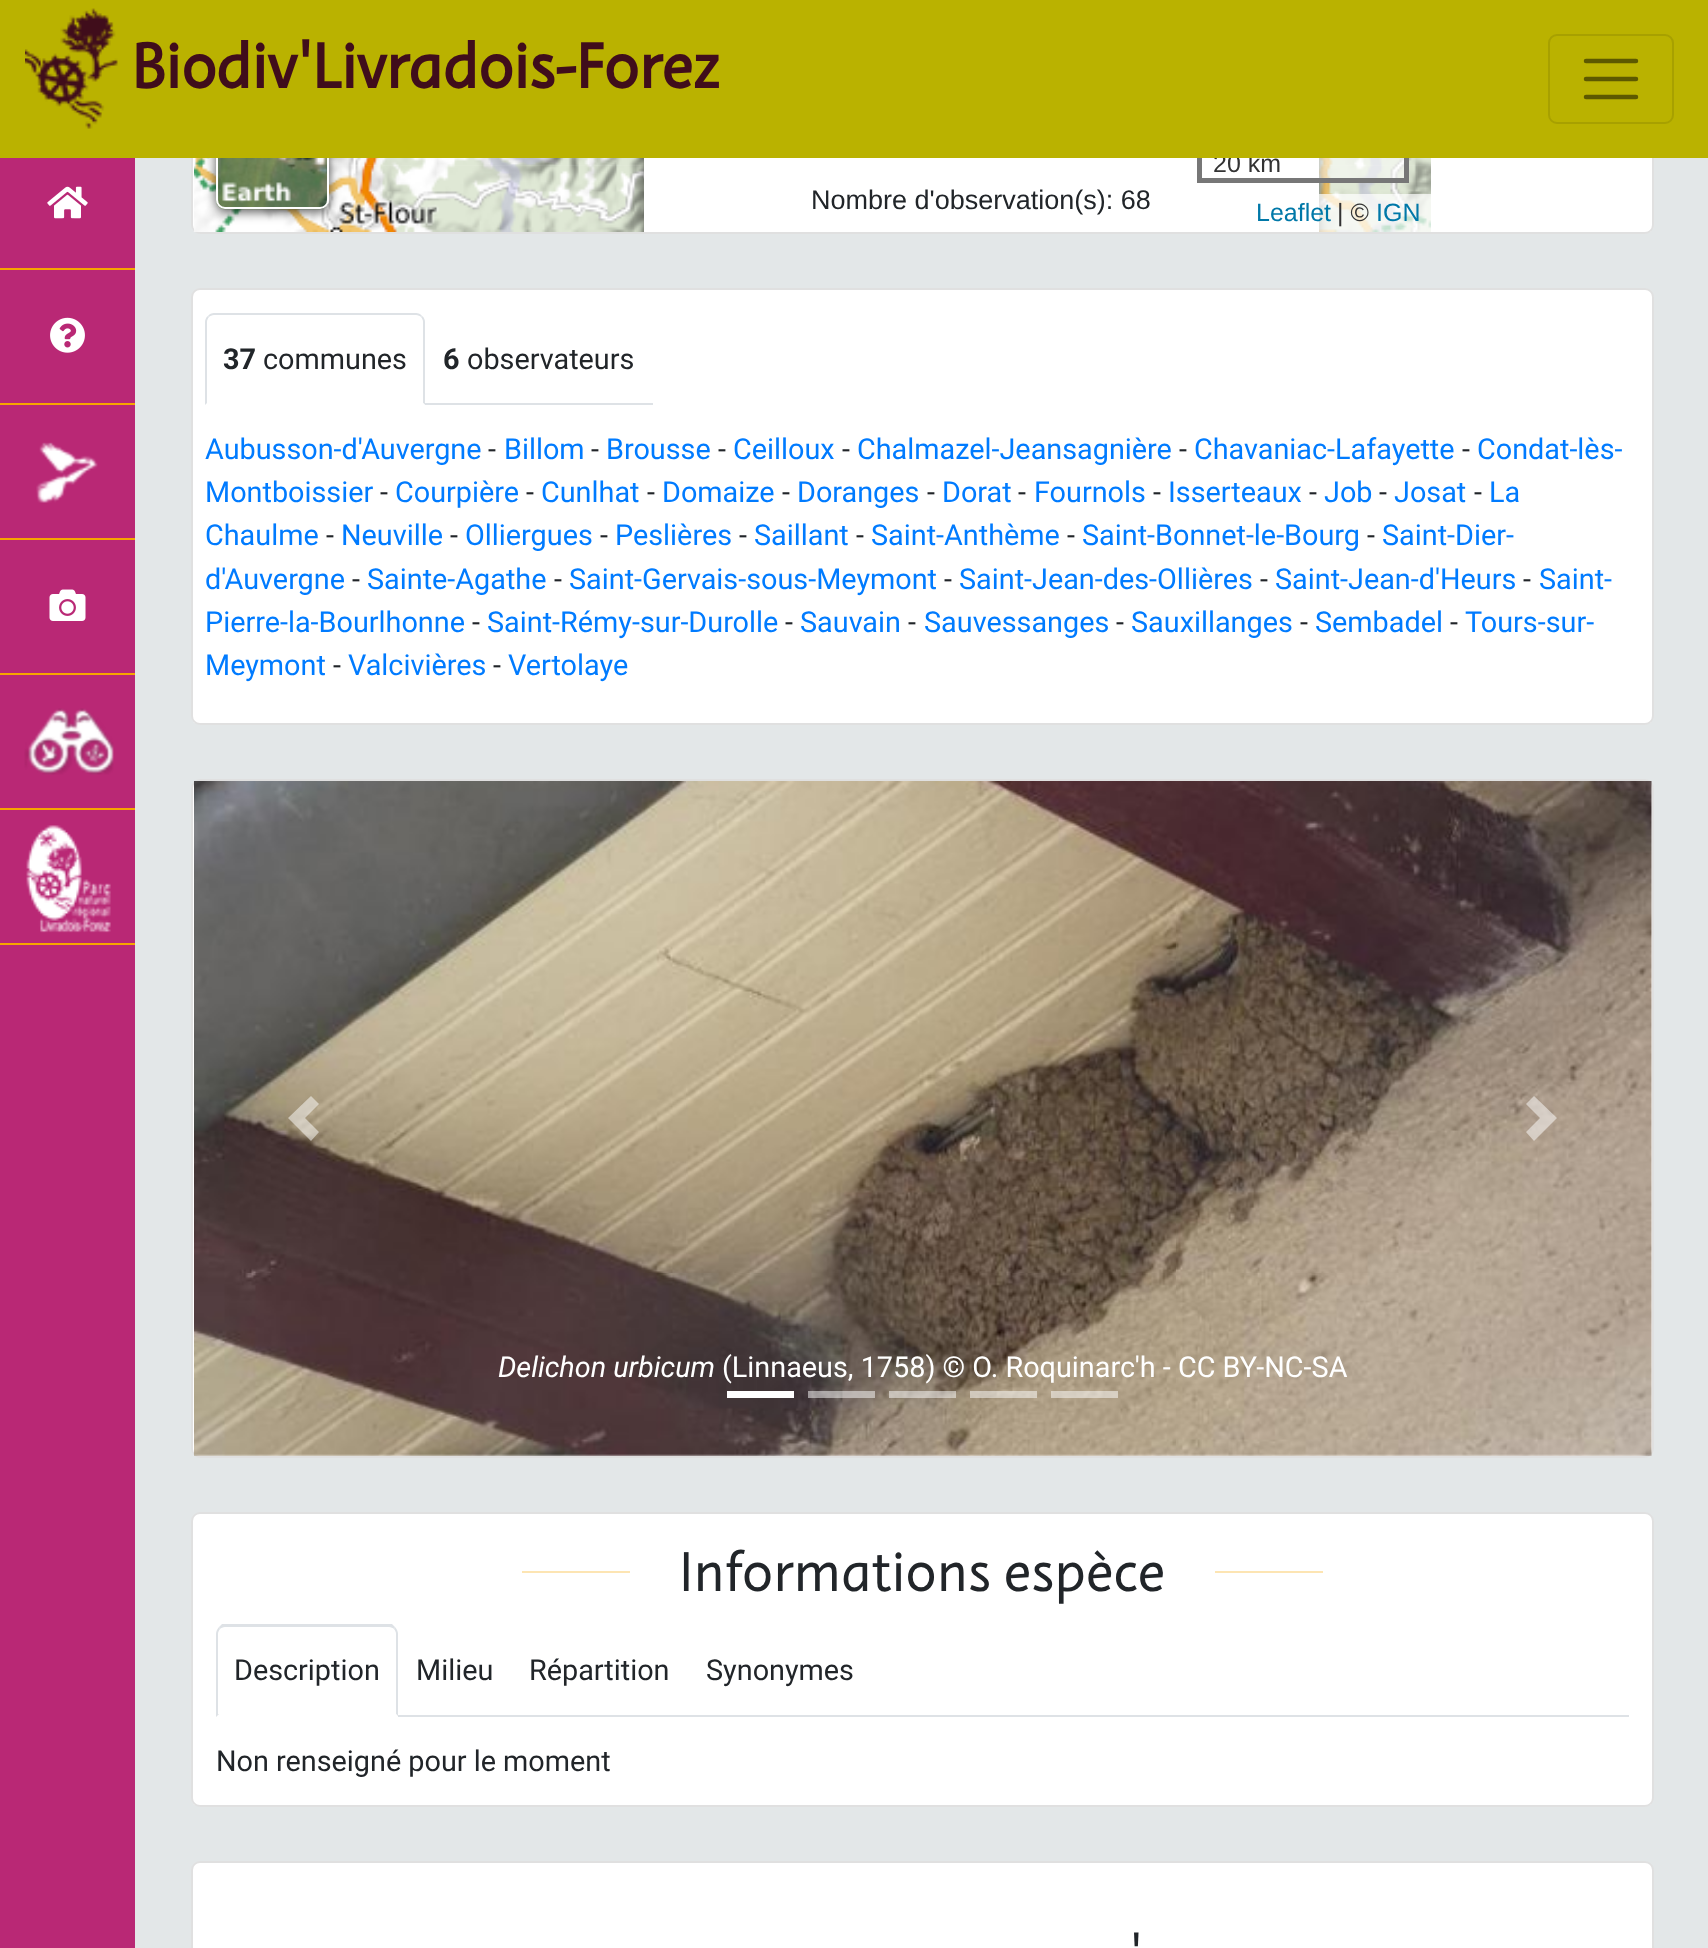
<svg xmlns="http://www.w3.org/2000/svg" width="1708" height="1948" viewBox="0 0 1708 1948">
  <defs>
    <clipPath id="clip1"><path d="M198 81H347V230H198ZM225 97H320C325 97 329 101 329 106V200C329 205 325 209 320 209H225C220 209 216 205 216 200V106C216 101 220 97 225 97Z" clip-rule="evenodd"/></clipPath>
    <clipPath id="clip2"><path d="M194 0h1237v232H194z"/></clipPath>
    <clipPath id="clip3"><path d="M194 0h1237v232H194z"/></clipPath>
  </defs>
  <rect width="100%" height="100%" fill="#e3e7e8"/>
  <path d="M0 158h135v1790H0z" fill="#b92875"/>
  <path d="M0 268h135v2H0z" fill="#f7a600"/>
  <image x="47" y="186" width="41" height="33" href="img/2.png"/>
  <path d="M0 403h135v2H0z" fill="#f7a600"/>
  <image x="50" y="317" width="35" height="36" href="img/3.png"/>
  <path d="M0 538h135v2H0z" fill="#f7a600"/>
  <image x="36" y="442" width="62" height="61" href="img/4.png"/>
  <path d="M0 673h135v2H0z" fill="#f7a600"/>
  <image x="49" y="589" width="37" height="32" href="img/5.png"/>
  <path d="M0 808h135v2H0z" fill="#f7a600"/>
  <image x="24" y="708" width="90" height="67" href="img/6.png"/>
  <path d="M0 943h135v2H0z" fill="#f7a600"/>
  <image x="26" y="825" width="85" height="108" href="img/7.png"/>
  <rect x="191" y="-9" width="1463" height="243" rx="9" fill="#fff"/>
  <rect x="192" y="-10" width="1461" height="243" rx="8" fill="none" stroke="#0000001f" stroke-width="2"/>
  <image x="194" y="158" width="450" height="7" href="img/9.png"/>
  <image x="194" y="164" width="450" height="68" href="img/11.png"/>
  <g clip-path="url(#clip1)">
    <rect x="216" y="99" width="113" height="113" rx="9" fill="#000000a6" filter="blur(5.5px)"/>
  </g>
  <image x="216" y="158" width="113" height="52" href="img/8.png"/>
  <rect x="217" y="98" width="111" height="110" rx="8" fill="none" stroke="#fff" stroke-width="2"/>
  <image x="1319" y="158" width="112" height="7" href="img/10.png"/>
  <image x="1319" y="164" width="112" height="68" href="img/12.png"/>
  <g clip-path="url(#clip2)">
    <rect x="644" y="99" width="675" height="158" rx="9" fill="#000000a6" filter="blur(5.5px)"/>
  </g>
  <path d="M646 158h671v74H646z" fill="#fff"/>
  <g clip-path="url(#clip3)">
    <rect x="645" y="98" width="673" height="155" rx="8" fill="none" stroke="#fff" stroke-width="2"/>
  </g>
  <path d="M1319 158h85v20H1319z" fill="#ffffff80"/>
  <path d="M1404 158h5v24H1404z" fill="#777"/>
  <path d="M1197 178h212v5H1197z" fill="#777"/>
  <path d="M1197 158h5v24H1197z" fill="#777"/>
  <path d="M1319 194h112v38H1319z" fill="#ffffffb3"/>
  <rect x="191" y="288" width="1463" height="437" rx="9" fill="#fff"/>
  <rect x="192" y="289" width="1461" height="435" rx="8" fill="none" stroke="#0000001f" stroke-width="2"/>
  <path d="M425 403h228v2H425z" fill="#dee2e6"/>
  <path d="M214 313C212 313 209 314 208 316L209 317C210 316 212 315 214 315H416C418 315 420 316 421 317L422 316C421 314 418 313 416 313Z" fill="#dee2e6"/>
  <path d="M425 405V322C425 320 424 317 422 316L421 317C422 318 423 320 423 322V403Z" fill="#dee2e6"/>
  <path d="M205 405H425L423 403H207Z" fill="#fff"/>
  <path d="M208 316C206 317 205 320 205 322V405L207 403V322C207 320 208 318 209 317Z" fill="#dee2e6"/>
  <rect x="191" y="779" width="1463" height="679" rx="9" fill="#fff"/>
  <rect x="192" y="780" width="1461" height="677" rx="8" fill="none" stroke="#0000001f" stroke-width="2"/>
  <image x="194" y="781" width="1458" height="675" href="img/13.png"/>
  <path d="M311 1096L288 1118L311 1141L319 1132L305 1118L319 1104Z" fill="#ffffff80"/>
  <path d="M1534 1096L1526 1104L1540 1118L1526 1132L1534 1141L1557 1118Z" fill="#ffffff80"/>
  <path d="M727 1391h67v7H727z" fill="#fff"/>
  <path d="M808 1391h67v7H808z" fill="#ffffff80"/>
  <path d="M889 1391h67v7H889z" fill="#ffffff80"/>
  <path d="M970 1391h67v7H970z" fill="#ffffff80"/>
  <path d="M1051 1391h67v7H1051z" fill="#ffffff80"/>
  <rect x="191" y="1512" width="1463" height="295" rx="9" fill="#fff"/>
  <rect x="192" y="1513" width="1461" height="293" rx="8" fill="none" stroke="#0000001f" stroke-width="2"/>
  <path d="M522 1571h108v2H522z" fill="#fde5b3"/>
  <path d="M1215 1571h108v2H1215z" fill="#fde5b3"/>
  <path d="M398 1715h1231v2H398z" fill="#dee2e6"/>
  <path d="M225 1627C223 1627 221 1628 220 1629L219 1627L222 1624H392L395 1627L394 1629C393 1628 391 1627 389 1627Z" fill="#dee2e6"/>
  <path d="M395 1627C397 1629 398 1632 398 1634V1716L396 1714V1634C396 1632 395 1630 394 1629Z" fill="#dee2e6"/>
  <path d="M398 1717H216L219 1714H396Z" fill="#fff"/>
  <path d="M216 1717L219 1714H218V1634C218 1632 219 1630 220 1629L219 1627C217 1629 216 1632 216 1634Z" fill="#dee2e6"/>
  <rect x="191" y="1861" width="1463" height="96" rx="9" fill="#fff"/>
  <rect x="192" y="1862" width="1461" height="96" rx="8" fill="none" stroke="#0000001f" stroke-width="2"/>
  <text x="811" y="209" font-family="Liberation Sans" font-size="27" fill="#212529">Nombre d'observation(s): 68</text>
  <text x="1213" y="172" font-family="Liberation Sans" font-size="25" fill="#333">20 km</text>
  <path d="M0 0h1708v158H0z" fill="#bab200"/>
  <rect x="1549" y="35" width="124" height="88" rx="8" fill="none" stroke="#a7a000" stroke-width="2"/>
  <path d="M1586 61H1636M1586 79H1636M1586 97H1636" fill="none" stroke="#5d5900" stroke-width="4.5" stroke-linecap="round"/>
  <text x="131" y="88" font-family="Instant" font-size="64.75" font-weight="bold" fill="#400d1b">Biodiv'Livradois-Forez</text>
  <image x="25" y="8" width="93" height="121" href="img/1.png"/>
  <text x="1256" y="221" font-family="Liberation Sans" font-size="25" fill="#0078a8">Leaflet</text>
  <text x="1337" y="221" font-family="Liberation Sans" font-size="25" fill="#333">| ©</text>
  <text x="1376" y="221" font-family="Liberation Sans" font-size="25" fill="#0078a8">IGN</text>
  <text x="223" y="369" font-family="Roboto" font-size="28.8" font-weight="bold" fill="#212529">37</text>
  <text x="263" y="369" font-family="Roboto" font-size="28.8" fill="#212529">communes</text>
  <text x="443" y="369" font-family="Roboto" font-size="28.8" font-weight="bold" fill="#212529">6</text>
  <text x="467" y="369" font-family="Roboto" font-size="28.8" fill="#212529">observateurs</text>
  <text x="205" y="459" font-family="Roboto" font-size="28.8" fill="#007bff">Aubusson-d'Auvergne</text>
  <text x="488" y="459" font-family="Roboto" font-size="28.8" fill="#212529">-</text>
  <text x="504" y="459" font-family="Roboto" font-size="28.8" fill="#007bff">Billom</text>
  <text x="591" y="459" font-family="Roboto" font-size="28.8" fill="#212529">-</text>
  <text x="606" y="459" font-family="Roboto" font-size="28.8" fill="#007bff">Brousse</text>
  <text x="718" y="459" font-family="Roboto" font-size="28.8" fill="#212529">-</text>
  <text x="733" y="459" font-family="Roboto" font-size="28.8" fill="#007bff">Ceilloux</text>
  <text x="842" y="459" font-family="Roboto" font-size="28.8" fill="#212529">-</text>
  <text x="857" y="459" font-family="Roboto" font-size="28.8" fill="#007bff">Chalmazel-Jeansagnière</text>
  <text x="1179" y="459" font-family="Roboto" font-size="28.8" fill="#212529">-</text>
  <text x="1194" y="459" font-family="Roboto" font-size="28.8" fill="#007bff">Chavaniac-Lafayette</text>
  <text x="1462" y="459" font-family="Roboto" font-size="28.8" fill="#212529">-</text>
  <g font-family="Roboto" font-size="28.8" fill="#007bff">
    <text x="1477" y="459">Condat-lès-</text>
    <text x="205" y="502">Montboissier</text>
  </g>
  <text x="380" y="502" font-family="Roboto" font-size="28.8" fill="#212529">-</text>
  <text x="395" y="502" font-family="Roboto" font-size="28.8" fill="#007bff">Courpière</text>
  <text x="526" y="502" font-family="Roboto" font-size="28.8" fill="#212529">-</text>
  <text x="541" y="502" font-family="Roboto" font-size="28.8" fill="#007bff">Cunlhat</text>
  <text x="647" y="502" font-family="Roboto" font-size="28.8" fill="#212529">-</text>
  <text x="662" y="502" font-family="Roboto" font-size="28.8" fill="#007bff">Domaize</text>
  <text x="782" y="502" font-family="Roboto" font-size="28.8" fill="#212529">-</text>
  <text x="797" y="502" font-family="Roboto" font-size="28.8" fill="#007bff">Doranges</text>
  <text x="927" y="502" font-family="Roboto" font-size="28.8" fill="#212529">-</text>
  <text x="942" y="502" font-family="Roboto" font-size="28.8" fill="#007bff">Dorat</text>
  <text x="1018" y="502" font-family="Roboto" font-size="28.8" fill="#212529">-</text>
  <text x="1034" y="502" font-family="Roboto" font-size="28.8" fill="#007bff">Fournols</text>
  <text x="1153" y="502" font-family="Roboto" font-size="28.8" fill="#212529">-</text>
  <text x="1168" y="502" font-family="Roboto" font-size="28.8" fill="#007bff">Isserteaux</text>
  <text x="1309" y="502" font-family="Roboto" font-size="28.8" fill="#212529">-</text>
  <text x="1324" y="502" font-family="Roboto" font-size="28.8" fill="#007bff">Job</text>
  <text x="1379" y="502" font-family="Roboto" font-size="28.8" fill="#212529">-</text>
  <text x="1394" y="502" font-family="Roboto" font-size="28.8" fill="#007bff">Josat</text>
  <text x="1474" y="502" font-family="Roboto" font-size="28.8" fill="#212529">-</text>
  <g font-family="Roboto" font-size="28.8" fill="#007bff">
    <text x="1489" y="502">La</text>
    <text x="205" y="545">Chaulme</text>
  </g>
  <text x="326" y="545" font-family="Roboto" font-size="28.8" fill="#212529">-</text>
  <text x="341" y="545" font-family="Roboto" font-size="28.8" fill="#007bff">Neuville</text>
  <text x="450" y="545" font-family="Roboto" font-size="28.8" fill="#212529">-</text>
  <text x="465" y="545" font-family="Roboto" font-size="28.8" fill="#007bff">Olliergues</text>
  <text x="600" y="545" font-family="Roboto" font-size="28.8" fill="#212529">-</text>
  <text x="615" y="545" font-family="Roboto" font-size="28.8" fill="#007bff">Peslières</text>
  <text x="739" y="545" font-family="Roboto" font-size="28.8" fill="#212529">-</text>
  <text x="754" y="545" font-family="Roboto" font-size="28.8" fill="#007bff">Saillant</text>
  <text x="856" y="545" font-family="Roboto" font-size="28.8" fill="#212529">-</text>
  <text x="871" y="545" font-family="Roboto" font-size="28.8" fill="#007bff">Saint-Anthème</text>
  <text x="1067" y="545" font-family="Roboto" font-size="28.8" fill="#212529">-</text>
  <text x="1082" y="545" font-family="Roboto" font-size="28.8" fill="#007bff">Saint-Bonnet-le-Bourg</text>
  <text x="1367" y="545" font-family="Roboto" font-size="28.8" fill="#212529">-</text>
  <g font-family="Roboto" font-size="28.8" fill="#007bff">
    <text x="1382" y="545">Saint-Dier-</text>
    <text x="205" y="589">d'Auvergne</text>
  </g>
  <text x="352" y="589" font-family="Roboto" font-size="28.8" fill="#212529">-</text>
  <text x="367" y="589" font-family="Roboto" font-size="28.8" fill="#007bff">Sainte-Agathe</text>
  <text x="554" y="589" font-family="Roboto" font-size="28.8" fill="#212529">-</text>
  <text x="569" y="589" font-family="Roboto" font-size="28.8" fill="#007bff">Saint-Gervais-sous-Meymont</text>
  <text x="944" y="589" font-family="Roboto" font-size="28.8" fill="#212529">-</text>
  <text x="959" y="589" font-family="Roboto" font-size="28.8" fill="#007bff">Saint-Jean-des-Ollières</text>
  <text x="1260" y="589" font-family="Roboto" font-size="28.8" fill="#212529">-</text>
  <text x="1275" y="589" font-family="Roboto" font-size="28.8" fill="#007bff">Saint-Jean-d'Heurs</text>
  <text x="1523" y="589" font-family="Roboto" font-size="28.8" fill="#212529">-</text>
  <g font-family="Roboto" font-size="28.8" fill="#007bff">
    <text x="1539" y="589">Saint-</text>
    <text x="205" y="632">Pierre-la-Bourlhonne</text>
  </g>
  <text x="472" y="632" font-family="Roboto" font-size="28.8" fill="#212529">-</text>
  <text x="487" y="632" font-family="Roboto" font-size="28.8" fill="#007bff">Saint-Rémy-sur-Durolle</text>
  <text x="785" y="632" font-family="Roboto" font-size="28.8" fill="#212529">-</text>
  <text x="800" y="632" font-family="Roboto" font-size="28.8" fill="#007bff">Sauvain</text>
  <text x="908" y="632" font-family="Roboto" font-size="28.8" fill="#212529">-</text>
  <text x="924" y="632" font-family="Roboto" font-size="28.8" fill="#007bff">Sauvessanges</text>
  <text x="1116" y="632" font-family="Roboto" font-size="28.8" fill="#212529">-</text>
  <text x="1131" y="632" font-family="Roboto" font-size="28.8" fill="#007bff">Sauxillanges</text>
  <text x="1300" y="632" font-family="Roboto" font-size="28.8" fill="#212529">-</text>
  <text x="1315" y="632" font-family="Roboto" font-size="28.8" fill="#007bff">Sembadel</text>
  <text x="1450" y="632" font-family="Roboto" font-size="28.8" fill="#212529">-</text>
  <g font-family="Roboto" font-size="28.8" fill="#007bff">
    <text x="1465" y="632">Tours-sur-</text>
    <text x="205" y="675">Meymont</text>
  </g>
  <text x="333" y="675" font-family="Roboto" font-size="28.8" fill="#212529">-</text>
  <text x="348" y="675" font-family="Roboto" font-size="28.8" fill="#007bff">Valcivières</text>
  <text x="493" y="675" font-family="Roboto" font-size="28.8" fill="#212529">-</text>
  <text x="508" y="675" font-family="Roboto" font-size="28.8" fill="#007bff">Vertolaye</text>
  <text x="498" y="1377" font-family="Roboto" font-size="28.8" font-style="italic" fill="#fff">Delichon urbicum</text>
  <text x="722" y="1377" font-family="Roboto" font-size="28.8" fill="#fff">(Linnaeus, 1758) © O. Roquinarc'h - CC BY-NC-SA</text>
  <text x="679" y="1591" font-family="Instant" font-size="57.5" fill="#212529">Informations espèce</text>
  <g font-family="Roboto" font-size="28.8" fill="#212529">
    <text x="234" y="1680">Description</text>
    <text x="416" y="1680">Milieu</text>
    <text x="529" y="1680">Répartition</text>
    <text x="706" y="1680">Synonymes</text>
    <text x="216" y="1771">Non renseigné pour le moment</text>
  </g>
  <text x="1130" y="1974" font-family="Instant" font-size="57.5" fill="#212529">'</text>
</svg>
